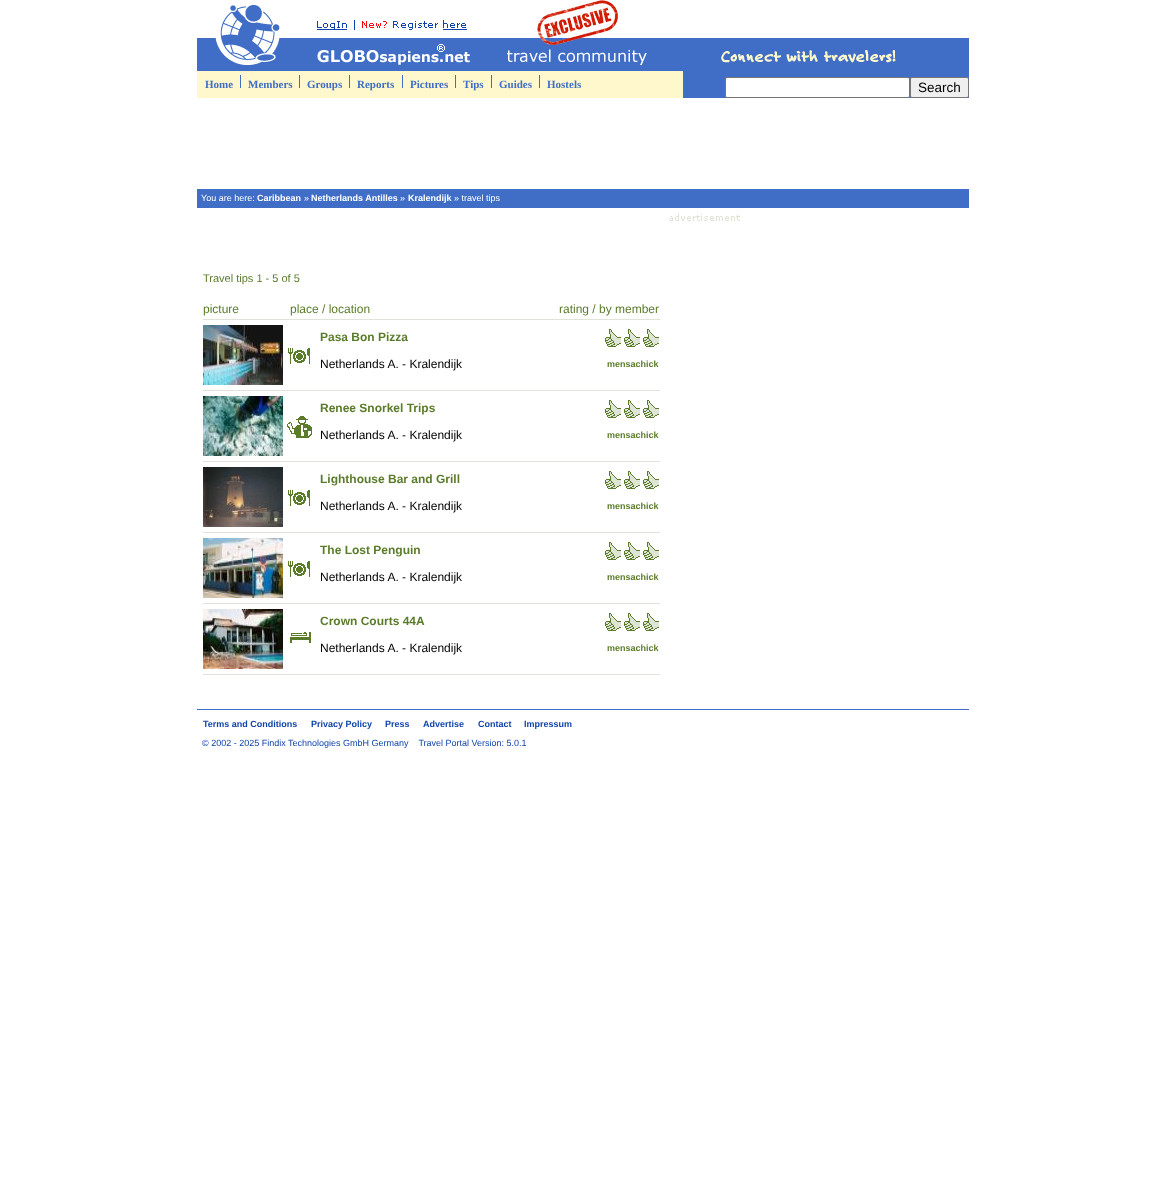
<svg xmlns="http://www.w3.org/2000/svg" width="1165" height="1188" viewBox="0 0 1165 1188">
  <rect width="100%" height="100%" fill="#fff"/>
  <image x="197" y="0" width="772" height="70" href="img/1.png"/>
  <path d="M197 70h772v28H197z" fill="#406ec6"/>
  <path d="M197 71h486v27H197z" fill="#fff8cc"/>
  <path d="M240 75h1v13H240z" fill="#406ec6"/>
  <path d="M299 75h1v13H299z" fill="#406ec6"/>
  <path d="M349 75h1v13H349z" fill="#406ec6"/>
  <path d="M402 75h1v13H402z" fill="#406ec6"/>
  <path d="M455 75h1v13H455z" fill="#406ec6"/>
  <path d="M491 75h1v13H491z" fill="#406ec6"/>
  <path d="M539 75h1v13H539z" fill="#406ec6"/>
  <rect x="725.5" y="77.5" width="184" height="20" rx="1.5" fill="#fff" stroke="#767676"/>
  <rect x="910.5" y="77.5" width="58" height="20" rx="1.5" fill="#efefef" stroke="#767676"/>
  <path d="M197 189h772v19H197z" fill="#406ec6"/>
  <image x="669" y="213" width="71" height="8" href="img/2.png"/>
  <path d="M203 319h457v1H203z" fill="#e0e3da"/>
  <image x="203" y="325" width="80" height="60" href="img/3.png"/>
  <image x="605" y="329" width="54" height="18" href="img/4.png"/>
  <image x="288" y="348" width="22" height="16" href="img/5.png"/>
  <path d="M203 390h457v1H203z" fill="#e0e3da"/>
  <image x="203" y="396" width="80" height="60" href="img/6.png"/>
  <image x="605" y="400" width="54" height="18" href="img/4.png"/>
  <image x="287" y="416" width="25" height="22" href="img/7.png"/>
  <path d="M203 461h457v1H203z" fill="#e0e3da"/>
  <image x="203" y="467" width="80" height="60" href="img/8.png"/>
  <image x="605" y="471" width="54" height="18" href="img/4.png"/>
  <image x="288" y="490" width="22" height="16" href="img/5.png"/>
  <path d="M203 532h457v1H203z" fill="#e0e3da"/>
  <image x="203" y="538" width="80" height="60" href="img/9.png"/>
  <image x="605" y="542" width="54" height="18" href="img/4.png"/>
  <image x="288" y="561" width="22" height="16" href="img/5.png"/>
  <path d="M203 603h457v1H203z" fill="#e0e3da"/>
  <image x="203" y="609" width="80" height="60" href="img/10.png"/>
  <image x="605" y="613" width="54" height="18" href="img/4.png"/>
  <image x="290" y="632" width="21" height="11" href="img/11.png"/>
  <path d="M203 674h457v1H203z" fill="#e0e3da"/>
  <path d="M197 709h772v1H197z" fill="#406ec6"/>
  <g font-family="Liberation Serif" font-size="11" font-weight="bold" fill="#406ec6">
    <text x="205" y="88">Home</text>
    <text x="248" y="88">Members</text>
    <text x="307" y="88">Groups</text>
    <text x="357" y="88">Reports</text>
    <text x="410" y="88">Pictures</text>
    <text x="463" y="88">Tips</text>
    <text x="499" y="88">Guides</text>
    <text x="547" y="88">Hostels</text>
  </g>
  <text x="918" y="92" font-family="Liberation Sans" font-size="13.5" fill="#000">Search</text>
  <text x="201" y="201" font-family="Liberation Sans" font-size="9" fill="#fff">You are here:</text>
  <text x="257" y="201" font-family="Liberation Sans" font-size="9" font-weight="bold" fill="#fff">Caribbean</text>
  <text x="304" y="201" font-family="Liberation Sans" font-size="9" fill="#fff">»</text>
  <text x="311" y="201" font-family="Liberation Sans" font-size="9" font-weight="bold" fill="#fff">Netherlands Antilles</text>
  <text x="400" y="201" font-family="Liberation Sans" font-size="9" fill="#fff">»</text>
  <text x="408" y="201" font-family="Liberation Sans" font-size="9" font-weight="bold" fill="#fff">Kralendijk</text>
  <text x="454" y="201" font-family="Liberation Sans" font-size="9" fill="#fff">» travel tips</text>
  <text x="203" y="282" font-family="Liberation Sans" font-size="11" fill="#5a7c2a">Travel tips 1 - 5 of 5</text>
  <g font-family="Liberation Sans" font-size="12" fill="#5a7c2a">
    <text x="203" y="313">picture</text>
    <text x="290" y="313">place / location</text>
    <text x="559" y="313">rating / by member</text>
  </g>
  <text x="320" y="341" font-family="Liberation Sans" font-size="12" font-weight="bold" fill="#5a7c2a">Pasa Bon Pizza</text>
  <text x="320" y="368" font-family="Liberation Sans" font-size="12" fill="#000">Netherlands A. - Kralendijk</text>
  <text x="607" y="367" font-family="Liberation Sans" font-size="9" font-weight="bold" fill="#5a7c2a">mensachick</text>
  <text x="320" y="412" font-family="Liberation Sans" font-size="12" font-weight="bold" fill="#5a7c2a">Renee Snorkel Trips</text>
  <text x="320" y="439" font-family="Liberation Sans" font-size="12" fill="#000">Netherlands A. - Kralendijk</text>
  <text x="607" y="438" font-family="Liberation Sans" font-size="9" font-weight="bold" fill="#5a7c2a">mensachick</text>
  <text x="320" y="483" font-family="Liberation Sans" font-size="12" font-weight="bold" fill="#5a7c2a">Lighthouse Bar and Grill</text>
  <text x="320" y="510" font-family="Liberation Sans" font-size="12" fill="#000">Netherlands A. - Kralendijk</text>
  <text x="607" y="509" font-family="Liberation Sans" font-size="9" font-weight="bold" fill="#5a7c2a">mensachick</text>
  <text x="320" y="554" font-family="Liberation Sans" font-size="12" font-weight="bold" fill="#5a7c2a">The Lost Penguin</text>
  <text x="320" y="581" font-family="Liberation Sans" font-size="12" fill="#000">Netherlands A. - Kralendijk</text>
  <text x="607" y="580" font-family="Liberation Sans" font-size="9" font-weight="bold" fill="#5a7c2a">mensachick</text>
  <text x="320" y="625" font-family="Liberation Sans" font-size="12" font-weight="bold" fill="#5a7c2a">Crown Courts 44A</text>
  <text x="320" y="652" font-family="Liberation Sans" font-size="12" fill="#000">Netherlands A. - Kralendijk</text>
  <text x="607" y="651" font-family="Liberation Sans" font-size="9" font-weight="bold" fill="#5a7c2a">mensachick</text>
  <g font-family="Liberation Sans" font-size="9" font-weight="bold" fill="#14a">
    <text x="203" y="727">Terms and Conditions</text>
    <text x="311" y="727">Privacy Policy</text>
    <text x="385" y="727">Press</text>
    <text x="423" y="727">Advertise</text>
    <text x="478" y="727">Contact</text>
    <text x="524" y="727">Impressum</text>
  </g>
  <text x="202" y="746" font-family="Liberation Sans" font-size="9" fill="#14a" xml:space="preserve">© 2002 - 2025 Findix Technologies GmbH Germany    Travel Portal Version: 5.0.1</text>
</svg>
